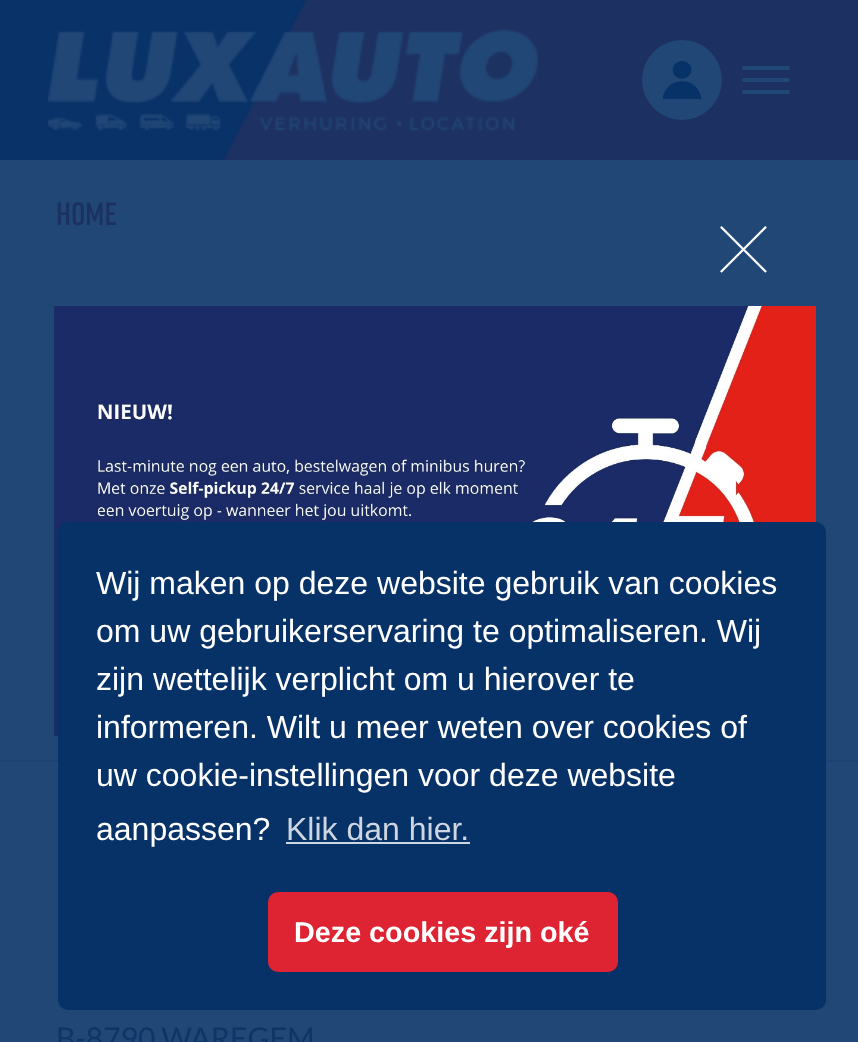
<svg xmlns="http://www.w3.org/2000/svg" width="858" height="1042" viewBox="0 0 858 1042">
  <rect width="100%" height="100%" fill="#204776"/>
  <path d="M0 0h48v160H0z" fill="#083268"/>
  <path d="M538 0h320v160H538z" fill="#1c3162"/>
  <image x="48" y="0" width="490" height="160" href="img/1.png"/>
  <circle cx="682" cy="80" r="40" fill="#204776"/>
  <image x="662" y="61" width="40" height="38" href="img/2.png"/>
  <rect x="742" y="90" width="48" height="4" rx="2" fill="#204776"/>
  <rect x="742" y="66" width="48" height="4" rx="2" fill="#204776"/>
  <rect x="742" y="78" width="48" height="4" rx="2" fill="#204776"/>
  <path d="M0 760h858v2H0z" fill="#1b4272"/>
  <image x="720" y="226" width="47" height="47" href="img/3.png"/>
  <image x="54" y="306" width="762" height="430" href="img/4.png"/>
  <rect x="58" y="522" width="768" height="488" rx="10" fill="#073267"/>
  <path d="M286 842h184v2H286z" fill="#cdd6e1"/>
  <rect x="268" y="892" width="350" height="80" rx="10" fill="#de2432"/>
  <text x="56" y="225" font-family="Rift" font-size="32" font-weight="600" fill="#1c3162">HOME</text>
  <text x="56" y="1049" font-family="Lato" font-size="30" fill="#0d3566">B-8790 WAREGEM</text>
  <g font-family="Liberation Sans" font-size="32" fill="#fff">
    <text x="96" y="594">Wij maken op deze website gebruik van cookies</text>
    <text x="96" y="642">om uw gebruikerservaring te optimaliseren. Wij</text>
    <text x="96" y="690">zijn wettelijk verplicht om u hierover te</text>
    <text x="96" y="738">informeren. Wilt u meer weten over cookies of</text>
    <text x="96" y="786">uw cookie-instellingen voor deze website</text>
    <text x="96" y="840">aanpassen?</text>
  </g>
  <text x="286" y="840" font-family="Liberation Sans" font-size="32" fill="#cdd6e1">Klik dan hier.</text>
  <text x="294" y="942" font-family="Liberation Sans" font-size="28.75" font-weight="bold" fill="#fff">Deze cookies zijn oké</text>
</svg>
